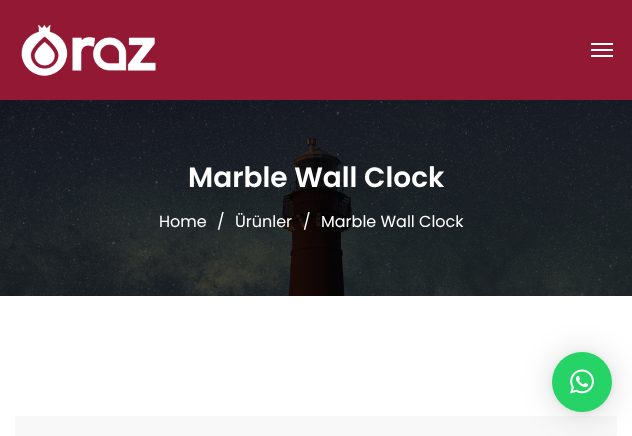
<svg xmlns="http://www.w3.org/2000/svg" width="632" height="436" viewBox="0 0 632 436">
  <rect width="100%" height="100%" fill="#fff"/>
  <path d="M0 0h632v100H0z" fill="#921833"/>
  <image x="21" y="24" width="135" height="52" href="img/1.png"/>
  <path d="M591 43h22v2H591z" fill="#fff"/>
  <path d="M591 49h22v2H591z" fill="#fff"/>
  <path d="M591 55h22v2H591z" fill="#fff"/>
  <image x="0" y="100" width="632" height="196" href="img/2.png"/>
  <path d="M15 416h602v20H15z" fill="#f8f8f8"/>
  <rect x="552" y="354" width="60" height="60" rx="30" fill="#00000029" filter="blur(16px)"/>
  <rect x="552" y="353" width="60" height="60" rx="30" fill="#0000000f" filter="blur(3px)"/>
  <circle cx="582" cy="382" r="30" fill="#25d366"/>
  <image x="570" y="369" width="24" height="25" href="img/3.png"/>
  <text x="188" y="187" font-family="Poppins" font-size="28" font-weight="600" fill="#fff">Marble Wall Clock</text>
  <g font-family="Poppins" font-size="16" fill="#fff">
    <text x="159" y="227">Home</text>
    <text x="217" y="227">/</text>
    <text x="235" y="227">Ürünler</text>
    <text x="303" y="227">/</text>
    <text x="321" y="227">Marble Wall Clock</text>
  </g>
</svg>
